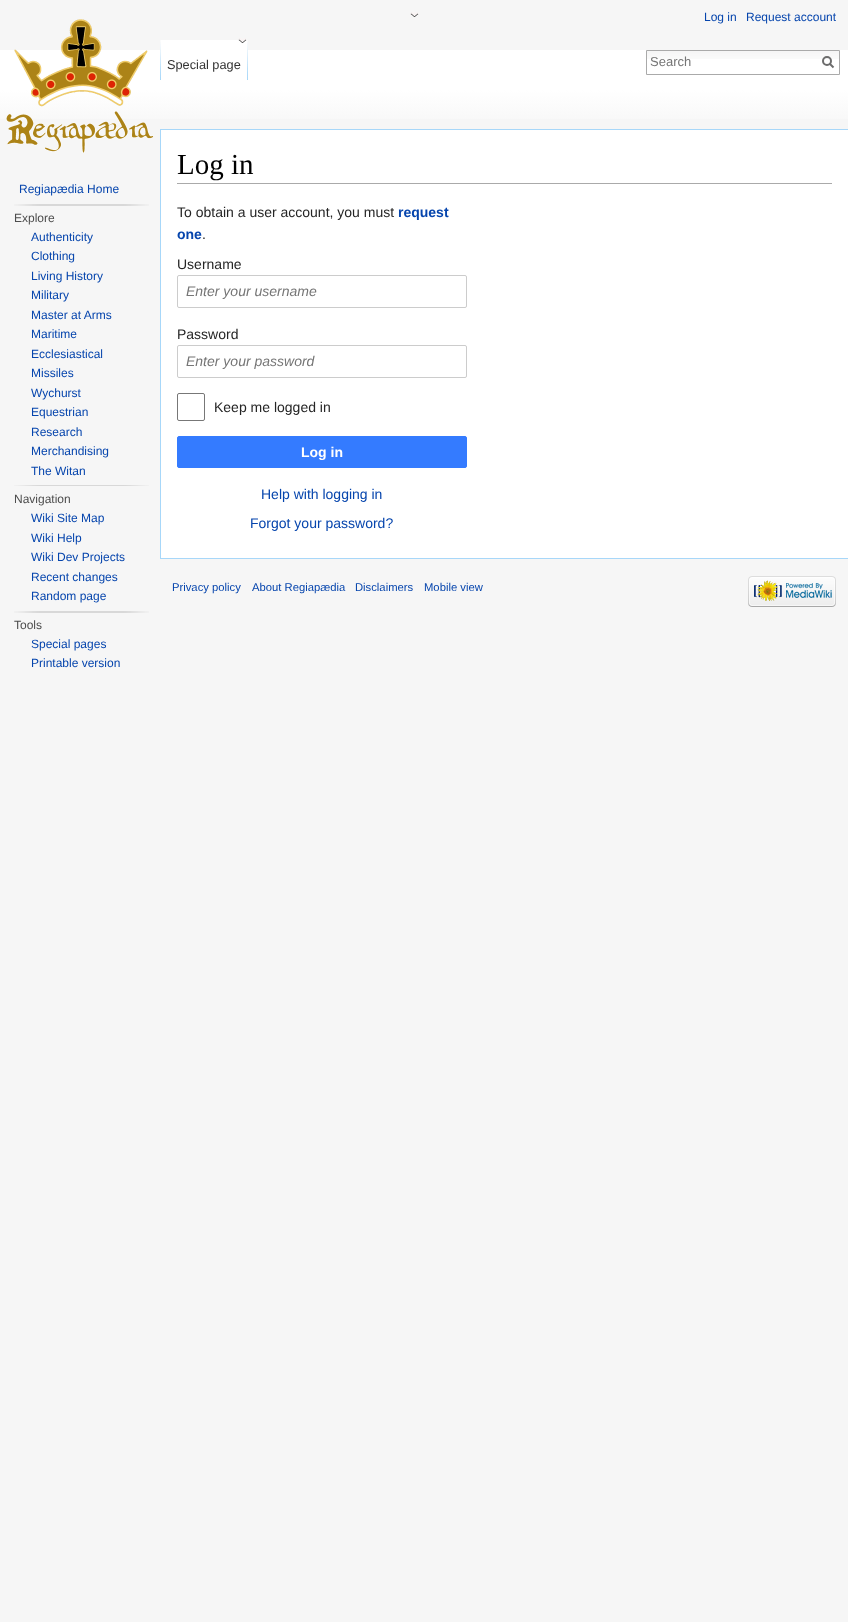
<svg xmlns="http://www.w3.org/2000/svg" width="848" height="1622" viewBox="0 0 848 1622">
  <defs>
    <linearGradient id="g1" gradientUnits="userSpaceOnUse" x1="424" y1="50" x2="424" y2="130"><stop offset="0.5" stop-color="#fff"/><stop offset="1" stop-color="#f6f6f6"/></linearGradient>
  </defs>
  <rect width="100%" height="100%" fill="#f6f6f6"/>
  <path d="M0 50h848v69H0z" fill="url(#g1)"/>
  <image x="160" y="40" width="1" height="40" href="img/1.png"/>
  <path d="M161 40h86v10H161z" fill="#fff"/>
  <image x="247" y="40" width="1" height="40" href="img/2.png"/>
  <image x="647" y="51" width="192" height="8" href="img/3.png"/>
  <path d="M646.5 50.5h193v24H646.5z" fill="none" stroke="#aaa"/>
  <path d="M833.5 67.5L829.5 63.5" fill="none" stroke="#6c6c6c" stroke-width="2"/>
  <circle cx="827" cy="61" r="4" fill="none" stroke="#6c6c6c" stroke-width="2"/>
  <image x="6" y="19" width="148" height="134" href="img/4.png"/>
  <image x="14" y="204" width="135" height="2" href="img/5.png"/>
  <image x="14" y="485" width="135" height="1" href="img/6.png"/>
  <image x="14" y="611" width="135" height="2" href="img/5.png"/>
  <image x="410" y="12" width="9" height="5" href="img/7.png"/>
  <image x="238" y="38" width="9" height="5" href="img/8.png"/>
  <path d="M161 130h687v428H161z" fill="#fff"/>
  <path d="M160 129h688v1H160z" fill="#a7d7f9"/>
  <path d="M160 558h688v1H160z" fill="#a7d7f9"/>
  <path d="M160 129h1v430H160z" fill="#a7d7f9"/>
  <path d="M177 183h655v1H177z" fill="#aaa"/>
  <rect x="177.5" y="275.5" width="289" height="32" rx="1.5" fill="none" stroke="#ccc"/>
  <rect x="177.5" y="345.5" width="289" height="32" rx="1.5" fill="none" stroke="#ccc"/>
  <rect x="177.5" y="393.5" width="27" height="27" rx="1.5" fill="none" stroke="#777"/>
  <rect x="177.5" y="436.5" width="289" height="31" rx="1.5" fill="#347bff" stroke="#347bff"/>
  <image x="748" y="576" width="88" height="31" href="img/9.png"/>
  <g font-family="Liberation Sans" font-size="12" fill="#0645ad">
    <text x="704" y="21">Log in</text>
    <text x="746" y="21">Request account</text>
  </g>
  <text x="167" y="69" font-family="Liberation Sans" font-size="12.75" fill="#333">Special page</text>
  <text x="650" y="66" font-family="Liberation Sans" font-size="13" fill="#757575">Search</text>
  <text x="19" y="193" font-family="Liberation Sans" font-size="12" fill="#0645ad">Regiapædia Home</text>
  <text x="14" y="222" font-family="Liberation Sans" font-size="12" fill="#4d4d4d">Explore</text>
  <g font-family="Liberation Sans" font-size="12" fill="#0645ad">
    <text x="31" y="241">Authenticity</text>
    <text x="31" y="260">Clothing</text>
    <text x="31" y="280">Living History</text>
    <text x="31" y="299">Military</text>
    <text x="31" y="319">Master at Arms</text>
    <text x="31" y="338">Maritime</text>
    <text x="31" y="358">Ecclesiastical</text>
    <text x="31" y="377">Missiles</text>
    <text x="31" y="397">Wychurst</text>
    <text x="31" y="416">Equestrian</text>
    <text x="31" y="436">Research</text>
    <text x="31" y="455">Merchandising</text>
    <text x="31" y="475">The Witan</text>
  </g>
  <text x="14" y="503" font-family="Liberation Sans" font-size="12" fill="#4d4d4d">Navigation</text>
  <g font-family="Liberation Sans" font-size="12" fill="#0645ad">
    <text x="31" y="522">Wiki Site Map</text>
    <text x="31" y="542">Wiki Help</text>
    <text x="31" y="561">Wiki Dev Projects</text>
    <text x="31" y="581">Recent changes</text>
    <text x="31" y="600">Random page</text>
  </g>
  <text x="14" y="629" font-family="Liberation Sans" font-size="12" fill="#4d4d4d">Tools</text>
  <g font-family="Liberation Sans" font-size="12" fill="#0645ad">
    <text x="31" y="648">Special pages</text>
    <text x="31" y="667">Printable version</text>
  </g>
  <text x="177" y="174" font-family="Liberation Serif" font-size="29" fill="#000">Log in</text>
  <text x="177" y="217" font-family="Liberation Sans" font-size="14" fill="#252525">To obtain a user account, you must</text>
  <g font-family="Liberation Sans" font-size="14" font-weight="bold" fill="#0645ad">
    <text x="398" y="217">request</text>
    <text x="177" y="239">one</text>
  </g>
  <g font-family="Liberation Sans" font-size="14" fill="#252525">
    <text x="202" y="239">.</text>
    <text x="177" y="269">Username</text>
  </g>
  <text x="186" y="296" font-family="Liberation Sans" font-size="14" font-style="italic" fill="#757575">Enter your username</text>
  <text x="177" y="339" font-family="Liberation Sans" font-size="14" fill="#252525">Password</text>
  <text x="186" y="366" font-family="Liberation Sans" font-size="14" font-style="italic" fill="#757575">Enter your password</text>
  <text x="214" y="412" font-family="Liberation Sans" font-size="14" fill="#252525">Keep me logged in</text>
  <text x="301" y="457" font-family="Liberation Sans" font-size="14" font-weight="bold" fill="#fff">Log in</text>
  <g font-family="Liberation Sans" font-size="14" fill="#0645ad">
    <text x="261" y="499">Help with logging in</text>
    <text x="250" y="528">Forgot your password?</text>
  </g>
  <g font-family="Liberation Sans" font-size="11.25" fill="#0645ad">
    <text x="172" y="591">Privacy policy</text>
    <text x="252" y="591">About Regiapædia</text>
    <text x="355" y="591">Disclaimers</text>
    <text x="424" y="591">Mobile view</text>
  </g>
</svg>
